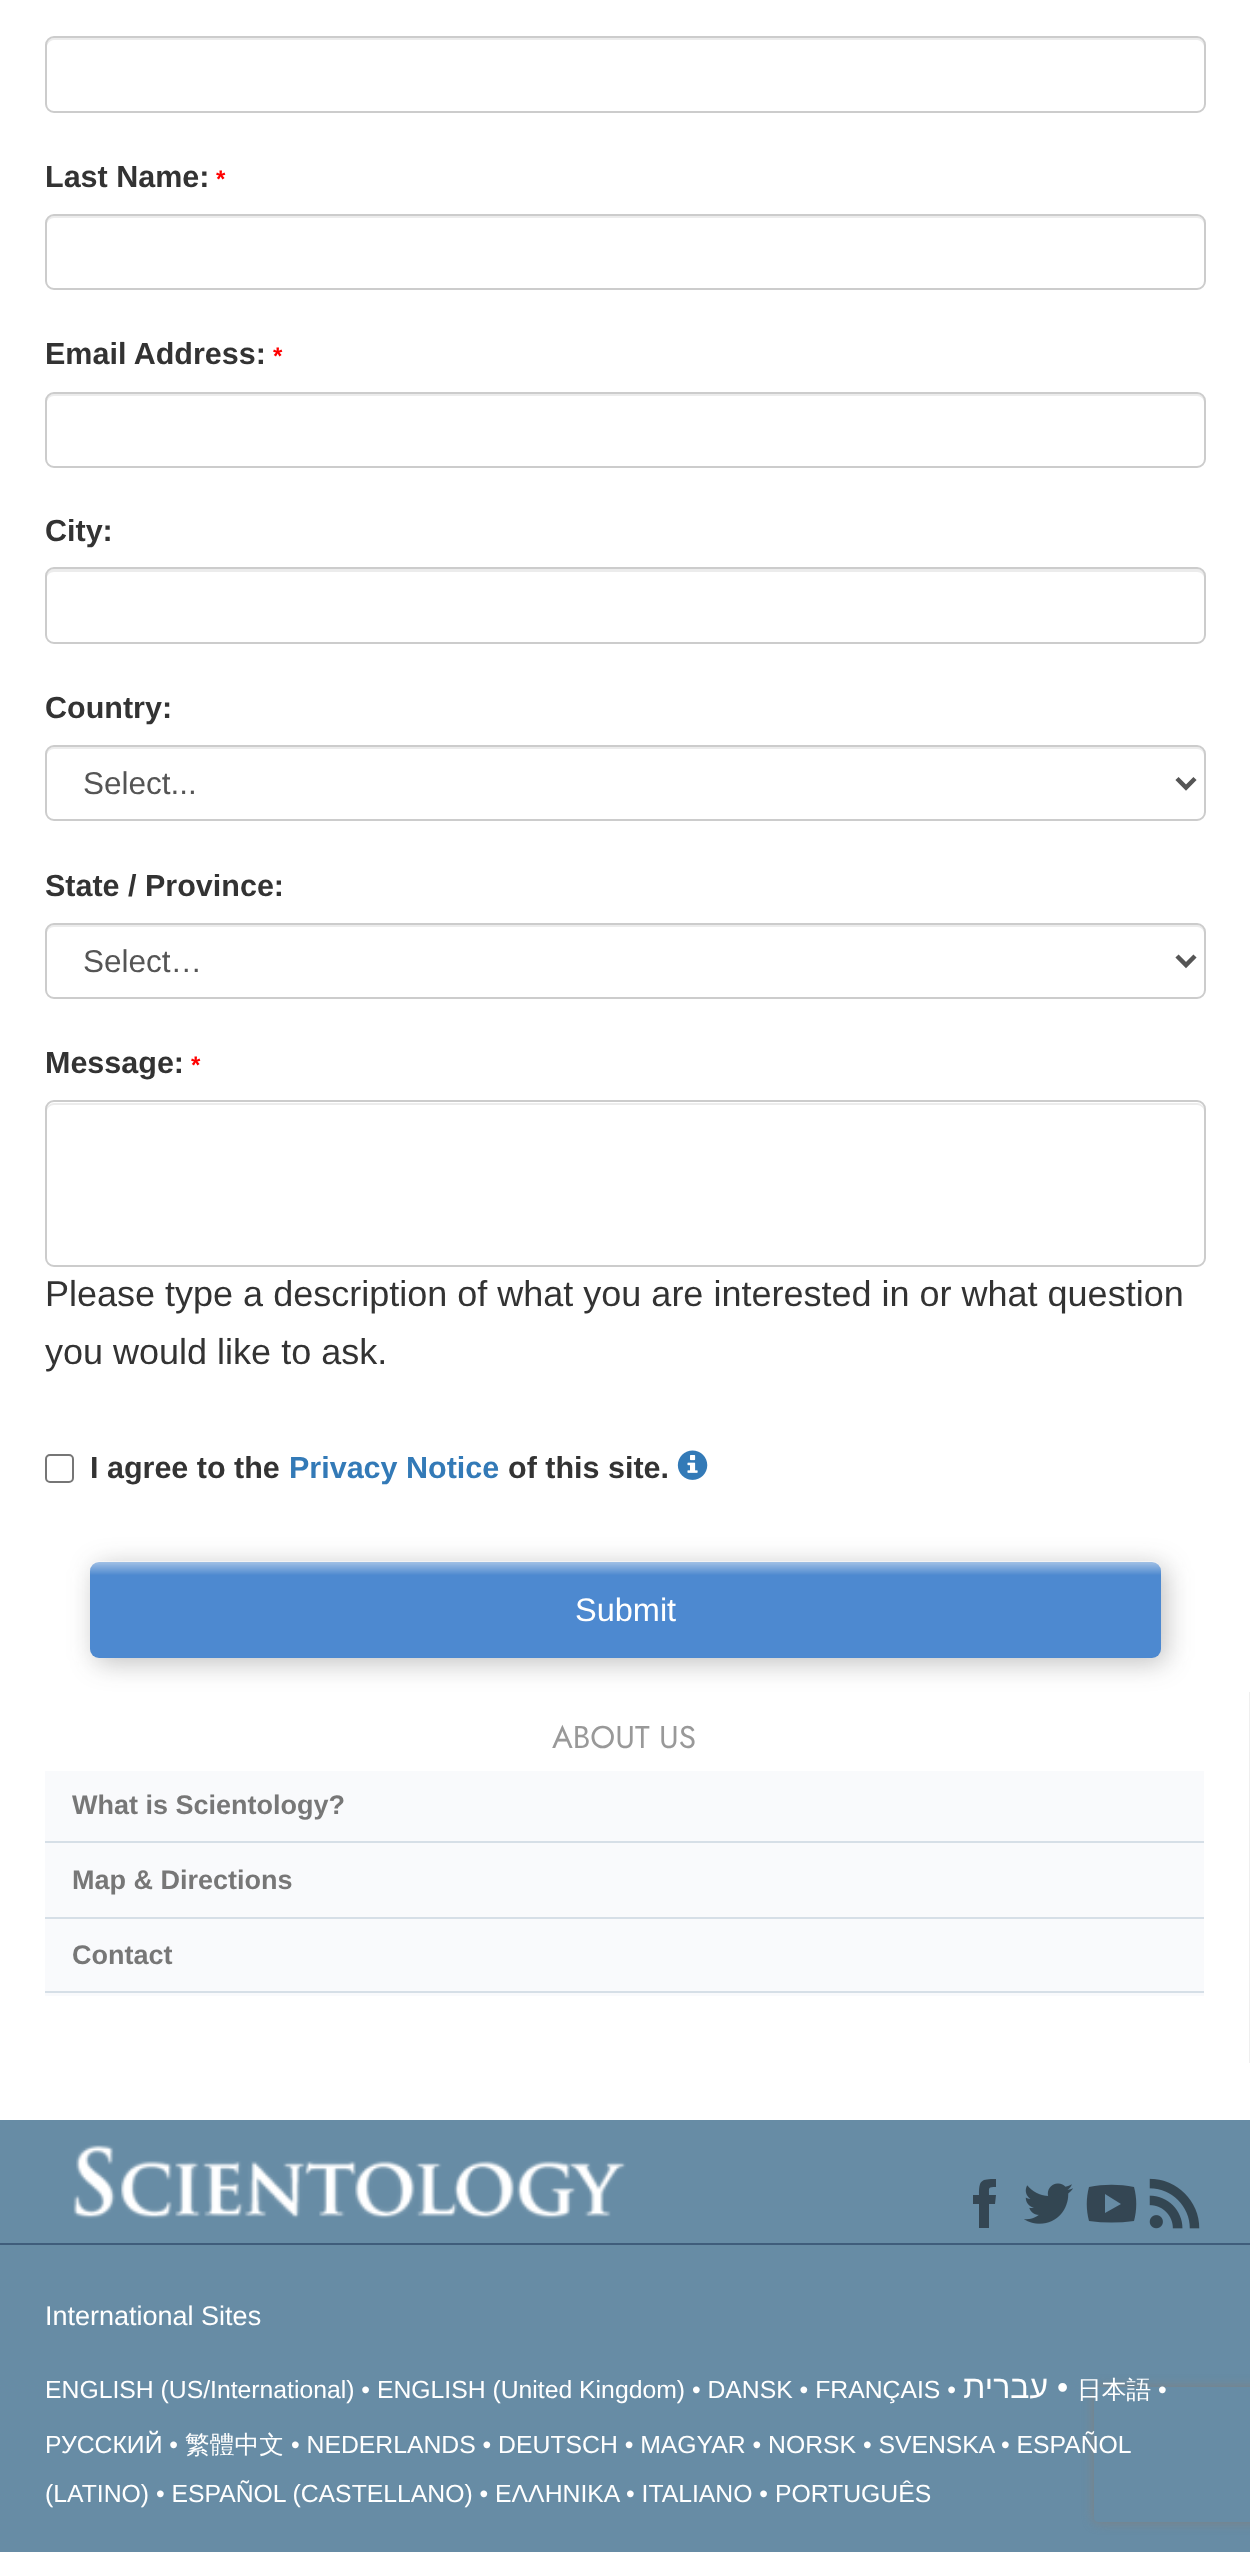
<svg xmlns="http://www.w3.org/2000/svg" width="1250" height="2552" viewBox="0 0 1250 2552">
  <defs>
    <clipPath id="clip1"><path d="M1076 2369H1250V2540H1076ZM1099 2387H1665C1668 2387 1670 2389 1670 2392V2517C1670 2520 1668 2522 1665 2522H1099C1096 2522 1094 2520 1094 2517V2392C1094 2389 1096 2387 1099 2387Z" clip-rule="evenodd"/></clipPath>
  </defs>
  <rect width="100%" height="100%" fill="#fff"/>
  <path d="M54 40H1197C1201 40 1204 44 1204 47V45C1204 41 1201 38 1197 38H54C50 38 47 41 47 45V47C47 44 50 40 54 40Z" fill="#ececec"/>
  <rect x="46" y="37" width="1159" height="75" rx="8" fill="none" stroke="#ccc" stroke-width="2"/>
  <path d="M54 218H1197C1201 218 1204 221 1204 225V223C1204 219 1201 216 1197 216H54C50 216 47 219 47 223V225C47 221 50 218 54 218Z" fill="#ececec"/>
  <rect x="46" y="215" width="1159" height="74" rx="8" fill="none" stroke="#ccc" stroke-width="2"/>
  <path d="M54 396H1197C1201 396 1204 399 1204 403V401C1204 397 1201 394 1197 394H54C50 394 47 397 47 401V403C47 399 50 396 54 396Z" fill="#ececec"/>
  <rect x="46" y="393" width="1159" height="74" rx="8" fill="none" stroke="#ccc" stroke-width="2"/>
  <path d="M54 572H1197C1201 572 1204 575 1204 578V576C1204 572 1201 569 1197 569H54C50 569 47 572 47 576V578C47 575 50 572 54 572Z" fill="#ececec"/>
  <rect x="46" y="568" width="1159" height="75" rx="8" fill="none" stroke="#ccc" stroke-width="2"/>
  <path d="M54 749H1197C1201 749 1204 752 1204 756V754C1204 750 1201 747 1197 747H54C50 747 47 750 47 754V756C47 752 50 749 54 749Z" fill="#ececec"/>
  <rect x="46" y="746" width="1159" height="74" rx="8" fill="none" stroke="#ccc" stroke-width="2"/>
  <path d="M1177 778.5L1186 787.5L1195 778.5" fill="none" stroke="#555" stroke-width="4.5"/>
  <path d="M54 927H1197C1201 927 1204 930 1204 934V932C1204 928 1201 925 1197 925H54C50 925 47 928 47 932V934C47 930 50 927 54 927Z" fill="#ececec"/>
  <rect x="46" y="924" width="1159" height="74" rx="8" fill="none" stroke="#ccc" stroke-width="2"/>
  <path d="M1177 956L1186 965L1195 956" fill="none" stroke="#555" stroke-width="4.5"/>
  <path d="M54 1105H1197C1201 1105 1204 1108 1204 1112V1110C1204 1106 1201 1103 1197 1103H54C50 1103 47 1106 47 1110V1112C47 1108 50 1105 54 1105Z" fill="#ececec"/>
  <rect x="46" y="1101" width="1159" height="165" rx="8" fill="none" stroke="#ccc" stroke-width="2"/>
  <rect x="46" y="1455" width="27" height="27" rx="4" fill="none" stroke="#767676" stroke-width="2"/>
  <image x="677" y="1450" width="31" height="30" href="img/1.png"/>
  <rect x="95" y="1566" width="1071" height="97" rx="9" fill="#3232324d" filter="blur(13.5px)"/>
  <rect x="90" y="1562" width="1071" height="96" rx="9" fill="#4d89d0"/>
  <image x="90" y="1561" width="1071" height="14" href="img/2.png"/>
  <path d="M0 2120h1250v432H0z" fill="#678ca5"/>
  <g clip-path="url(#clip1)">
    <rect x="1094" y="2387" width="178" height="135" rx="5" fill="#808080" filter="blur(5.5px)"/>
  </g>
  <path d="M1249 1692h1v371H1249z" fill="#efefef"/>
  <path d="M45 1771h1159v225H45z" fill="#f9fafc"/>
  <path d="M45 1841h1159v2H45z" fill="#d6dfe7"/>
  <path d="M45 1917h1159v2H45z" fill="#d6dfe7"/>
  <path d="M45 1991h1159v2H45z" fill="#d6dfe7"/>
  <image x="73" y="2145" width="553" height="74" href="img/3.png"/>
  <path d="M989 2228H979V2204H973V2195H979C979 2180 981 2179 996 2179V2187C988 2187 989 2187 989 2195H996L995 2204H989Z" fill="#344653"/>
  <image x="1024" y="2183" width="49" height="41" href="img/4.png"/>
  <path d="M1134 2187C1119 2184 1104 2184 1089 2187C1086 2198 1086 2210 1089 2221C1104 2223 1119 2223 1134 2221C1137 2210 1137 2198 1134 2187ZM1105 2213V2194L1121 2204Z" fill="#344653"/>
  <image x="1149" y="2178" width="51" height="51" href="img/5.png"/>
  <path d="M0 2243h1250v2H0z" fill="#405d7b"/>
  <text x="45" y="187" font-family="Liberation Sans" font-size="30.5" font-weight="bold" fill="#333">Last Name:</text>
  <text x="216" y="187" font-family="Liberation Sans" font-size="24" font-weight="bold" fill="#f00">*</text>
  <text x="45" y="364" font-family="Liberation Sans" font-size="30.5" font-weight="bold" fill="#333">Email Address:</text>
  <text x="273" y="364" font-family="Liberation Sans" font-size="24" font-weight="bold" fill="#f00">*</text>
  <g font-family="Liberation Sans" font-size="30.5" font-weight="bold" fill="#333">
    <text x="45" y="541">City:</text>
    <text x="45" y="718">Country:</text>
  </g>
  <text x="83" y="794" font-family="Liberation Sans" font-size="31.5" fill="#555">Select...</text>
  <text x="45" y="896" font-family="Liberation Sans" font-size="30.5" font-weight="bold" fill="#333">State / Province:</text>
  <text x="83" y="972" font-family="Liberation Sans" font-size="31.5" fill="#555">Select…</text>
  <text x="45" y="1073" font-family="Liberation Sans" font-size="30.5" font-weight="bold" fill="#333">Message:</text>
  <text x="191" y="1073" font-family="Liberation Sans" font-size="24" font-weight="bold" fill="#f00">*</text>
  <g font-family="Liberation Sans" font-size="36" fill="#333">
    <text x="45" y="1306">Please type a description of what you are interested in or what question</text>
    <text x="45" y="1364">you would like to ask.</text>
  </g>
  <text x="90" y="1478" font-family="Liberation Sans" font-size="30.5" font-weight="bold" fill="#333">I agree to the</text>
  <text x="289" y="1478" font-family="Liberation Sans" font-size="30.5" font-weight="bold" fill="#337ab7">Privacy Notice</text>
  <text x="508" y="1478" font-family="Liberation Sans" font-size="30.5" font-weight="bold" fill="#333">of this site.</text>
  <text x="575" y="1621" font-family="Liberation Sans" font-size="32.5" fill="#fff">Submit</text>
  <text x="552" y="1748" font-family="Jost" font-size="31.5" fill="#999">ABOUT US</text>
  <g font-family="Liberation Sans" font-size="27" font-weight="bold" fill="#777">
    <text x="72" y="1814">What is Scientology?</text>
    <text x="72" y="1889">Map &amp; Directions</text>
    <text x="72" y="1964">Contact</text>
  </g>
  <text x="45" y="2325" font-family="Liberation Sans" font-size="27" fill="#fff">International Sites</text>
  <text x="45" y="2398" font-family="Liberation Sans" font-size="24.75" fill="#fff">ENGLISH (US/International) • ENGLISH (United Kingdom) • DANSK • FRANÇAIS •</text>
  <text x="1048" y="2398" font-family="Liberation Sans" font-size="32" direction="rtl" fill="#fff">עברית</text>
  <text x="1057" y="2398" font-family="Liberation Sans" font-size="32" fill="#fff">•</text>
  <text x="1077" y="2398" font-family="WenQuanYi Zen Hei" font-size="24.75" font-weight="500" fill="#fff">日本語</text>
  <g font-family="Liberation Sans" font-size="24.75" fill="#fff">
    <text x="1158" y="2398">•</text>
    <text x="45" y="2453">РУССКИЙ •</text>
  </g>
  <text x="185" y="2453" font-family="WenQuanYi Zen Hei" font-size="24.75" font-weight="500" fill="#fff">繁體中文</text>
  <g font-family="Liberation Sans" font-size="24.75" fill="#fff">
    <text x="291" y="2453">• NEDERLANDS • DEUTSCH • MAGYAR • NORSK • SVENSKA</text>
    <text x="1001" y="2453">• ESPAÑOL</text>
    <text x="45" y="2502">(LATINO) • ESPAÑOL (CASTELLANO) • ΕΛΛΗΝΙΚA</text>
    <text x="626" y="2502">• ITALIANO • PORTUGUÊS</text>
  </g>
</svg>
